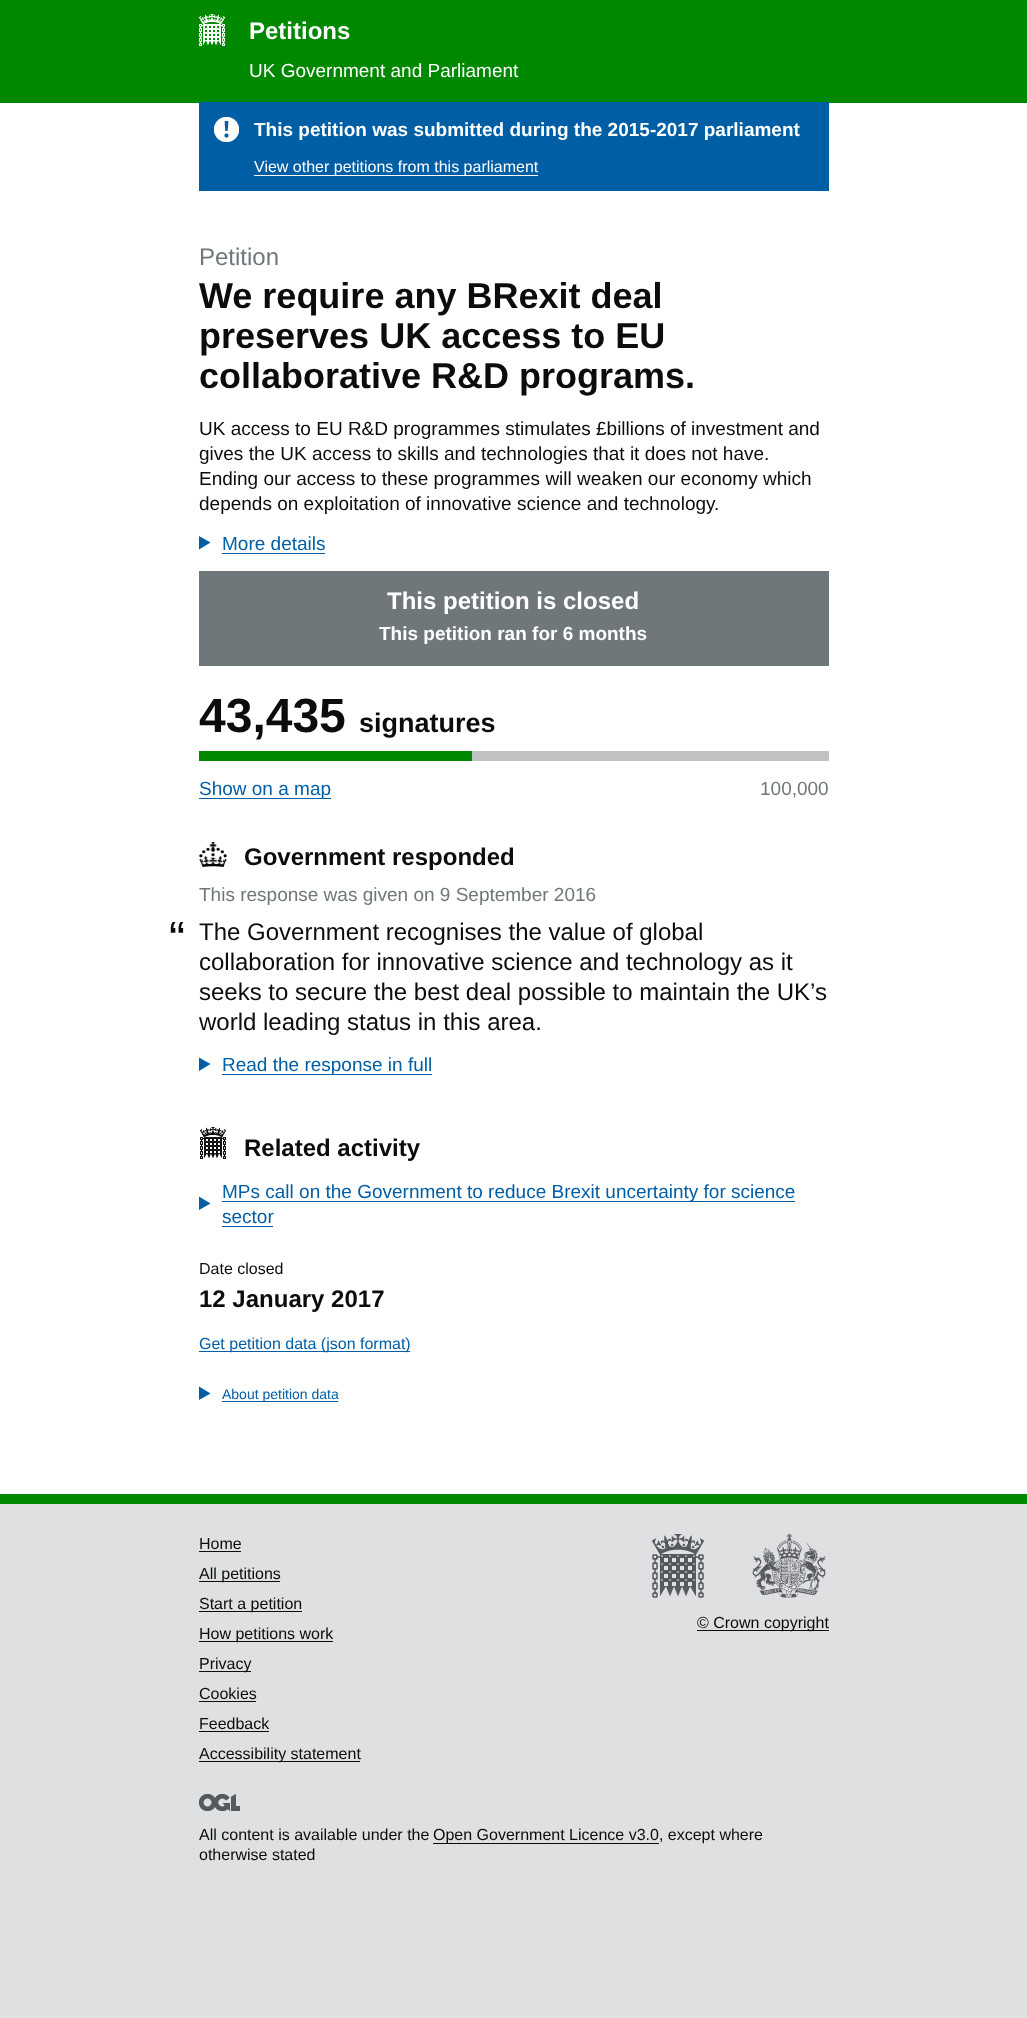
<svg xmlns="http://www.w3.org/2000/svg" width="1027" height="2018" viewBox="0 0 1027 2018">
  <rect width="100%" height="100%" fill="#dee0e2"/>
  <path d="M0 103h1027v1391H0z" fill="#fff"/>
  <path d="M0 0h1027v103H0z" fill="#080"/>
  <image x="199" y="14" width="26" height="32" href="img/1.png"/>
  <path d="M199 102h630v89H199z" fill="#005ea5"/>
  <image x="214" y="117" width="25" height="25" href="img/2.png"/>
  <path d="M254 175h284v1H254z" fill="#fff"/>
  <path d="M210.5 542.5L199 549.5V536Z" fill="#005ea5"/>
  <path d="M222 553h103v1H222z" fill="#005ea5"/>
  <path d="M199 571h630v95H199z" fill="#6f777b"/>
  <path d="M472 751h357v10H472z" fill="#bfc1c3"/>
  <path d="M199 751h273v10H199z" fill="#080"/>
  <path d="M199 798h132v1H199z" fill="#005ea5"/>
  <image x="199" y="842" width="28" height="25" href="img/3.png"/>
  <path d="M199 1071L210.5 1064L199 1057.5Z" fill="#005ea5"/>
  <path d="M222 1074h210v1H222z" fill="#005ea5"/>
  <image x="200" y="1127" width="26" height="32" href="img/4.png"/>
  <path d="M199 1210L210.5 1203.5L199 1196.5Z" fill="#005ea5"/>
  <path d="M222 1201h573v1H222z" fill="#005ea5"/>
  <path d="M222 1226h51v1H222z" fill="#005ea5"/>
  <path d="M199 1351h211v1H199z" fill="#005ea5"/>
  <path d="M199 1400L210.5 1393.5L199 1386.5Z" fill="#005ea5"/>
  <path d="M222 1401h116v1H222z" fill="#005ea5"/>
  <path d="M0 1494h1027v10H0z" fill="#080"/>
  <path d="M199 1551h42v1H199z" fill="#0b0c0c"/>
  <path d="M199 1581h81v1H199z" fill="#0b0c0c"/>
  <path d="M199 1611h103v1H199z" fill="#0b0c0c"/>
  <path d="M199 1641h134v1H199z" fill="#0b0c0c"/>
  <path d="M199 1671h52v1H199z" fill="#0b0c0c"/>
  <path d="M199 1701h57v1H199z" fill="#0b0c0c"/>
  <path d="M199 1731h70v1H199z" fill="#0b0c0c"/>
  <path d="M199 1761h161v1H199z" fill="#0b0c0c"/>
  <image x="652" y="1534" width="52" height="64" href="img/5.png"/>
  <image x="752" y="1534" width="74" height="64" href="img/6.png"/>
  <path d="M697 1630h132v1H697z" fill="#0b0c0c"/>
  <image x="199" y="1794" width="41" height="17" href="img/7.png"/>
  <path d="M433 1843h226v1H433z" fill="#0b0c0c"/>
  <text x="249" y="39" font-family="Liberation Sans" font-size="24" font-weight="bold" fill="#fff">Petitions</text>
  <text x="249" y="77" font-family="Liberation Sans" font-size="19" fill="#fff">UK Government and Parliament</text>
  <text x="254" y="136" font-family="Liberation Sans" font-size="19" font-weight="bold" fill="#fff">This petition was submitted during the 2015-2017 parliament</text>
  <text x="254" y="172" font-family="Liberation Sans" font-size="16" fill="#fff">View other petitions from this parliament</text>
  <text x="199" y="265" font-family="Liberation Sans" font-size="24" fill="#6f777b">Petition</text>
  <g font-family="Liberation Sans" font-size="36" font-weight="bold" fill="#0b0c0c">
    <text x="199" y="308">We require any BRexit deal</text>
    <text x="199" y="348">preserves UK access to EU</text>
    <text x="199" y="388">collaborative R&amp;D programs.</text>
  </g>
  <g font-family="Liberation Sans" font-size="19" fill="#0b0c0c">
    <text x="199" y="435">UK access to EU R&amp;D programmes stimulates £billions of investment and</text>
    <text x="199" y="460">gives the UK access to skills and technologies that it does not have.</text>
    <text x="199" y="485">Ending our access to these programmes will weaken our economy which</text>
    <text x="199" y="510">depends on exploitation of innovative science and technology.</text>
  </g>
  <text x="222" y="550" font-family="Liberation Sans" font-size="19" fill="#005ea5">More details</text>
  <text x="387" y="609" font-family="Liberation Sans" font-size="24" font-weight="bold" fill="#fff">This petition is closed</text>
  <text x="379" y="640" font-family="Liberation Sans" font-size="19" font-weight="bold" fill="#fff">This petition ran for 6 months</text>
  <text x="199" y="732" font-family="Liberation Sans" font-size="48" font-weight="bold" fill="#0b0c0c">43,435</text>
  <text x="359" y="732" font-family="Liberation Sans" font-size="27" font-weight="bold" fill="#0b0c0c">signatures</text>
  <text x="199" y="795" font-family="Liberation Sans" font-size="19" fill="#005ea5">Show on a map</text>
  <text x="760" y="795" font-family="Liberation Sans" font-size="19" fill="#6f777b">100,000</text>
  <text x="244" y="865" font-family="Liberation Sans" font-size="24" font-weight="bold" fill="#0b0c0c">Government responded</text>
  <text x="199" y="901" font-family="Liberation Sans" font-size="19" fill="#6f777b">This response was given on 9 September 2016</text>
  <text x="169" y="955" font-family="Liberation Sans" font-size="48" fill="#0b0c0c">“</text>
  <g font-family="Liberation Sans" font-size="24" fill="#0b0c0c">
    <text x="199" y="940">The Government recognises the value of global</text>
    <text x="199" y="970">collaboration for innovative science and technology as it</text>
    <text x="199" y="1000">seeks to secure the best deal possible to maintain the UK’s</text>
    <text x="199" y="1030">world leading status in this area.</text>
  </g>
  <text x="222" y="1071" font-family="Liberation Sans" font-size="19" fill="#005ea5">Read the response in full</text>
  <text x="244" y="1156" font-family="Liberation Sans" font-size="24" font-weight="bold" fill="#0b0c0c">Related activity</text>
  <g font-family="Liberation Sans" font-size="19" fill="#005ea5">
    <text x="222" y="1198">MPs call on the Government to reduce Brexit uncertainty for science</text>
    <text x="222" y="1223">sector</text>
  </g>
  <text x="199" y="1274" font-family="Liberation Sans" font-size="16" fill="#0b0c0c">Date closed</text>
  <text x="199" y="1307" font-family="Liberation Sans" font-size="24" font-weight="bold" fill="#0b0c0c">12 January 2017</text>
  <text x="199" y="1349" font-family="Liberation Sans" font-size="16" fill="#005ea5">Get petition data (json format)</text>
  <text x="222" y="1399" font-family="Liberation Sans" font-size="14" fill="#005ea5">About petition data</text>
  <g font-family="Liberation Sans" font-size="16" fill="#0b0c0c">
    <text x="199" y="1549">Home</text>
    <text x="199" y="1579">All petitions</text>
    <text x="199" y="1609">Start a petition</text>
    <text x="199" y="1639">How petitions work</text>
    <text x="199" y="1669">Privacy</text>
    <text x="199" y="1699">Cookies</text>
    <text x="199" y="1729">Feedback</text>
    <text x="199" y="1759">Accessibility statement</text>
    <text x="697" y="1628">© Crown copyright</text>
    <text x="199" y="1840">All content is available under the</text>
    <text x="433" y="1840">Open Government Licence v3.0, except where</text>
    <text x="199" y="1860">otherwise stated</text>
  </g>
</svg>
